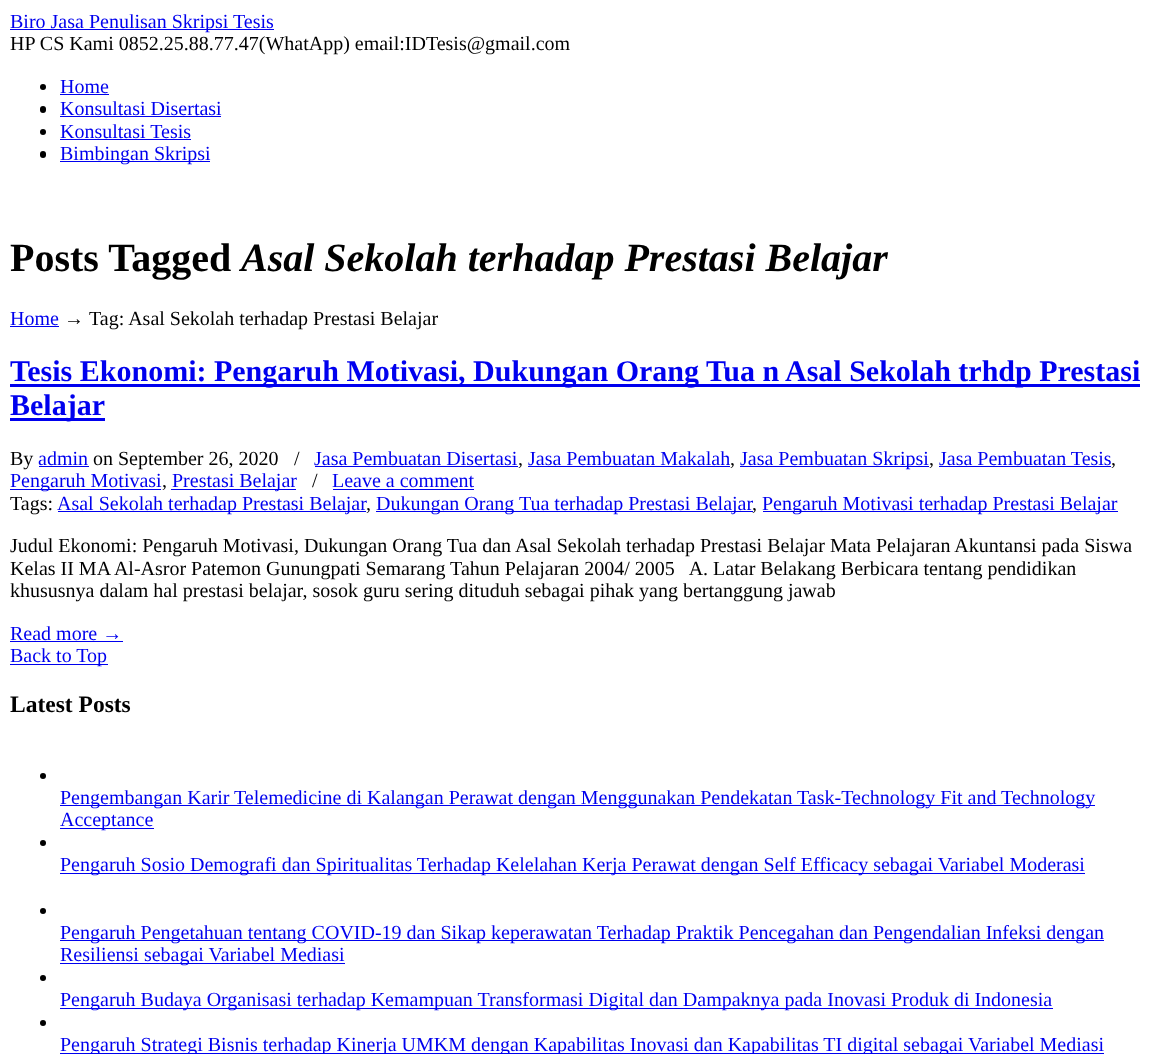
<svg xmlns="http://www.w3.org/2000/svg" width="1168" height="1054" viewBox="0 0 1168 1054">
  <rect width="100%" height="100%" fill="#fff"/>
  <path d="M10 29h264v1H10z" fill="#00e"/>
  <circle cx="43" cy="87" r="3" fill="#000"/>
  <path d="M60 94h49v1H60z" fill="#00e"/>
  <rect x="40" y="106" width="6" height="7" rx="3" fill="#000"/>
  <path d="M60 116h161v1H60z" fill="#00e"/>
  <circle cx="43" cy="132" r="3" fill="#000"/>
  <path d="M60 139h131v1H60z" fill="#00e"/>
  <rect x="40" y="151" width="6" height="7" rx="3" fill="#000"/>
  <path d="M60 161h150v1H60z" fill="#00e"/>
  <path d="M10 326h49v1H10z" fill="#00e"/>
  <path d="M10 384h1130v3H10z" fill="#00e"/>
  <path d="M10 418h95v3H10z" fill="#00e"/>
  <path d="M39 466h50v1H39z" fill="#00e"/>
  <path d="M315 466h203v1H315z" fill="#00e"/>
  <path d="M528 466h202v1H528z" fill="#00e"/>
  <path d="M740 466h189v1H740z" fill="#00e"/>
  <path d="M939 466h172v1H939z" fill="#00e"/>
  <path d="M10 489h151v1H10z" fill="#00e"/>
  <path d="M171 489h125v1H171z" fill="#00e"/>
  <path d="M333 489h141v1H333z" fill="#00e"/>
  <path d="M58 511h308v1H58z" fill="#00e"/>
  <path d="M376 511h377v1H376z" fill="#00e"/>
  <path d="M763 511h355v1H763z" fill="#00e"/>
  <path d="M10 641h113v1H10z" fill="#00e"/>
  <path d="M10 664h98v1H10z" fill="#00e"/>
  <circle cx="43" cy="776" r="3" fill="#000"/>
  <path d="M60 805h1035v1H60z" fill="#00e"/>
  <path d="M60 828h94v1H60z" fill="#00e"/>
  <circle cx="43" cy="843" r="3" fill="#000"/>
  <path d="M60 873h1025v1H60z" fill="#00e"/>
  <circle cx="43" cy="911" r="3" fill="#000"/>
  <path d="M60 940h1044v1H60z" fill="#00e"/>
  <path d="M60 963h285v1H60z" fill="#00e"/>
  <circle cx="43" cy="978" r="3" fill="#000"/>
  <path d="M60 1008h993v1H60z" fill="#00e"/>
  <circle cx="43" cy="1023" r="3" fill="#000"/>
  <path d="M60 1053h1044v1H60z" fill="#00e"/>
  <text x="10" y="28" font-family="Liberation Serif" font-size="20" fill="#00e">Biro Jasa Penulisan Skripsi Tesis</text>
  <text x="10" y="50" font-family="Liberation Serif" font-size="20" fill="#000">HP CS Kami 0852.25.88.77.47(WhatApp) email:IDTesis@gmail.com</text>
  <g font-family="Liberation Serif" font-size="20" fill="#00e">
    <text x="60" y="93">Home</text>
    <text x="60" y="115">Konsultasi Disertasi</text>
    <text x="60" y="138">Konsultasi Tesis</text>
    <text x="60" y="160">Bimbingan Skripsi</text>
  </g>
  <text x="10" y="271" font-family="Liberation Serif" font-size="40" font-weight="bold" fill="#000">Posts Tagged</text>
  <text x="241" y="271" font-family="Liberation Serif" font-size="40" font-weight="bold" font-style="italic" fill="#000">Asal Sekolah terhadap Prestasi Belajar</text>
  <text x="10" y="325" font-family="Liberation Serif" font-size="20" fill="#00e">Home</text>
  <g font-family="Liberation Serif" font-size="20" fill="#000">
    <text x="64" y="325">→</text>
    <text x="89" y="325">Tag: Asal Sekolah terhadap Prestasi Belajar</text>
  </g>
  <g font-family="Liberation Serif" font-size="30" font-weight="bold" fill="#00e">
    <text x="10" y="381">Tesis Ekonomi: Pengaruh Motivasi, Dukungan Orang Tua n Asal Sekolah trhdp Prestasi</text>
    <text x="10" y="415">Belajar</text>
  </g>
  <text x="10" y="465" font-family="Liberation Serif" font-size="20" fill="#000">By</text>
  <text x="38" y="465" font-family="Liberation Serif" font-size="20" fill="#00e">admin</text>
  <g font-family="Liberation Serif" font-size="20" fill="#000">
    <text x="93" y="465">on September 26, 2020</text>
    <text x="294" y="465">/</text>
  </g>
  <text x="314" y="465" font-family="Liberation Serif" font-size="20" fill="#00e">Jasa Pembuatan Disertasi</text>
  <text x="518" y="465" font-family="Liberation Serif" font-size="20" fill="#000">,</text>
  <text x="528" y="465" font-family="Liberation Serif" font-size="20" fill="#00e">Jasa Pembuatan Makalah</text>
  <text x="730" y="465" font-family="Liberation Serif" font-size="20" fill="#000">,</text>
  <text x="740" y="465" font-family="Liberation Serif" font-size="20" fill="#00e">Jasa Pembuatan Skripsi</text>
  <text x="929" y="465" font-family="Liberation Serif" font-size="20" fill="#000">,</text>
  <text x="939" y="465" font-family="Liberation Serif" font-size="20" fill="#00e">Jasa Pembuatan Tesis</text>
  <text x="1111" y="465" font-family="Liberation Serif" font-size="20" fill="#000">,</text>
  <text x="10" y="487" font-family="Liberation Serif" font-size="20" fill="#00e">Pengaruh Motivasi</text>
  <text x="162" y="487" font-family="Liberation Serif" font-size="20" fill="#000">,</text>
  <text x="172" y="487" font-family="Liberation Serif" font-size="20" fill="#00e">Prestasi Belajar</text>
  <text x="312" y="487" font-family="Liberation Serif" font-size="20" fill="#000">/</text>
  <text x="332" y="487" font-family="Liberation Serif" font-size="20" fill="#00e">Leave a comment</text>
  <text x="10" y="510" font-family="Liberation Serif" font-size="20" fill="#000">Tags:</text>
  <text x="57" y="510" font-family="Liberation Serif" font-size="20" fill="#00e">Asal Sekolah terhadap Prestasi Belajar</text>
  <text x="366" y="510" font-family="Liberation Serif" font-size="20" fill="#000">,</text>
  <text x="376" y="510" font-family="Liberation Serif" font-size="20" fill="#00e">Dukungan Orang Tua terhadap Prestasi Belajar</text>
  <text x="752" y="510" font-family="Liberation Serif" font-size="20" fill="#000">,</text>
  <text x="762" y="510" font-family="Liberation Serif" font-size="20" fill="#00e">Pengaruh Motivasi terhadap Prestasi Belajar</text>
  <g font-family="Liberation Serif" font-size="20" fill="#000">
    <text x="10" y="552">Judul Ekonomi: Pengaruh Motivasi, Dukungan Orang Tua dan Asal Sekolah terhadap Prestasi Belajar Mata Pelajaran Akuntansi pada Siswa</text>
    <text x="10" y="575" xml:space="preserve">Kelas II MA Al-Asror Patemon Gunungpati Semarang Tahun Pelajaran 2004/ 2005   A. Latar Belakang Berbicara tentang pendidikan</text>
    <text x="10" y="597">khususnya dalam hal prestasi belajar, sosok guru sering dituduh sebagai pihak yang bertanggung jawab</text>
  </g>
  <g font-family="Liberation Serif" font-size="20" fill="#00e">
    <text x="10" y="640">Read more →</text>
    <text x="10" y="662">Back to Top</text>
  </g>
  <text x="10" y="712" font-family="Liberation Serif" font-size="23.5" font-weight="bold" fill="#000">Latest Posts</text>
  <g font-family="Liberation Serif" font-size="20" fill="#00e">
    <text x="60" y="804">Pengembangan Karir Telemedicine di Kalangan Perawat dengan Menggunakan Pendekatan Task-Technology Fit and Technology</text>
    <text x="60" y="826">Acceptance</text>
    <text x="60" y="871">Pengaruh Sosio Demografi dan Spiritualitas Terhadap Kelelahan Kerja Perawat dengan Self Efficacy sebagai Variabel Moderasi</text>
    <text x="60" y="939">Pengaruh Pengetahuan tentang COVID-19 dan Sikap keperawatan Terhadap Praktik Pencegahan dan Pengendalian Infeksi dengan</text>
    <text x="60" y="961">Resiliensi sebagai Variabel Mediasi</text>
    <text x="60" y="1006">Pengaruh Budaya Organisasi terhadap Kemampuan Transformasi Digital dan Dampaknya pada Inovasi Produk di Indonesia</text>
    <text x="60" y="1051">Pengaruh Strategi Bisnis terhadap Kinerja UMKM dengan Kapabilitas Inovasi dan Kapabilitas TI digital sebagai Variabel Mediasi</text>
  </g>
</svg>
